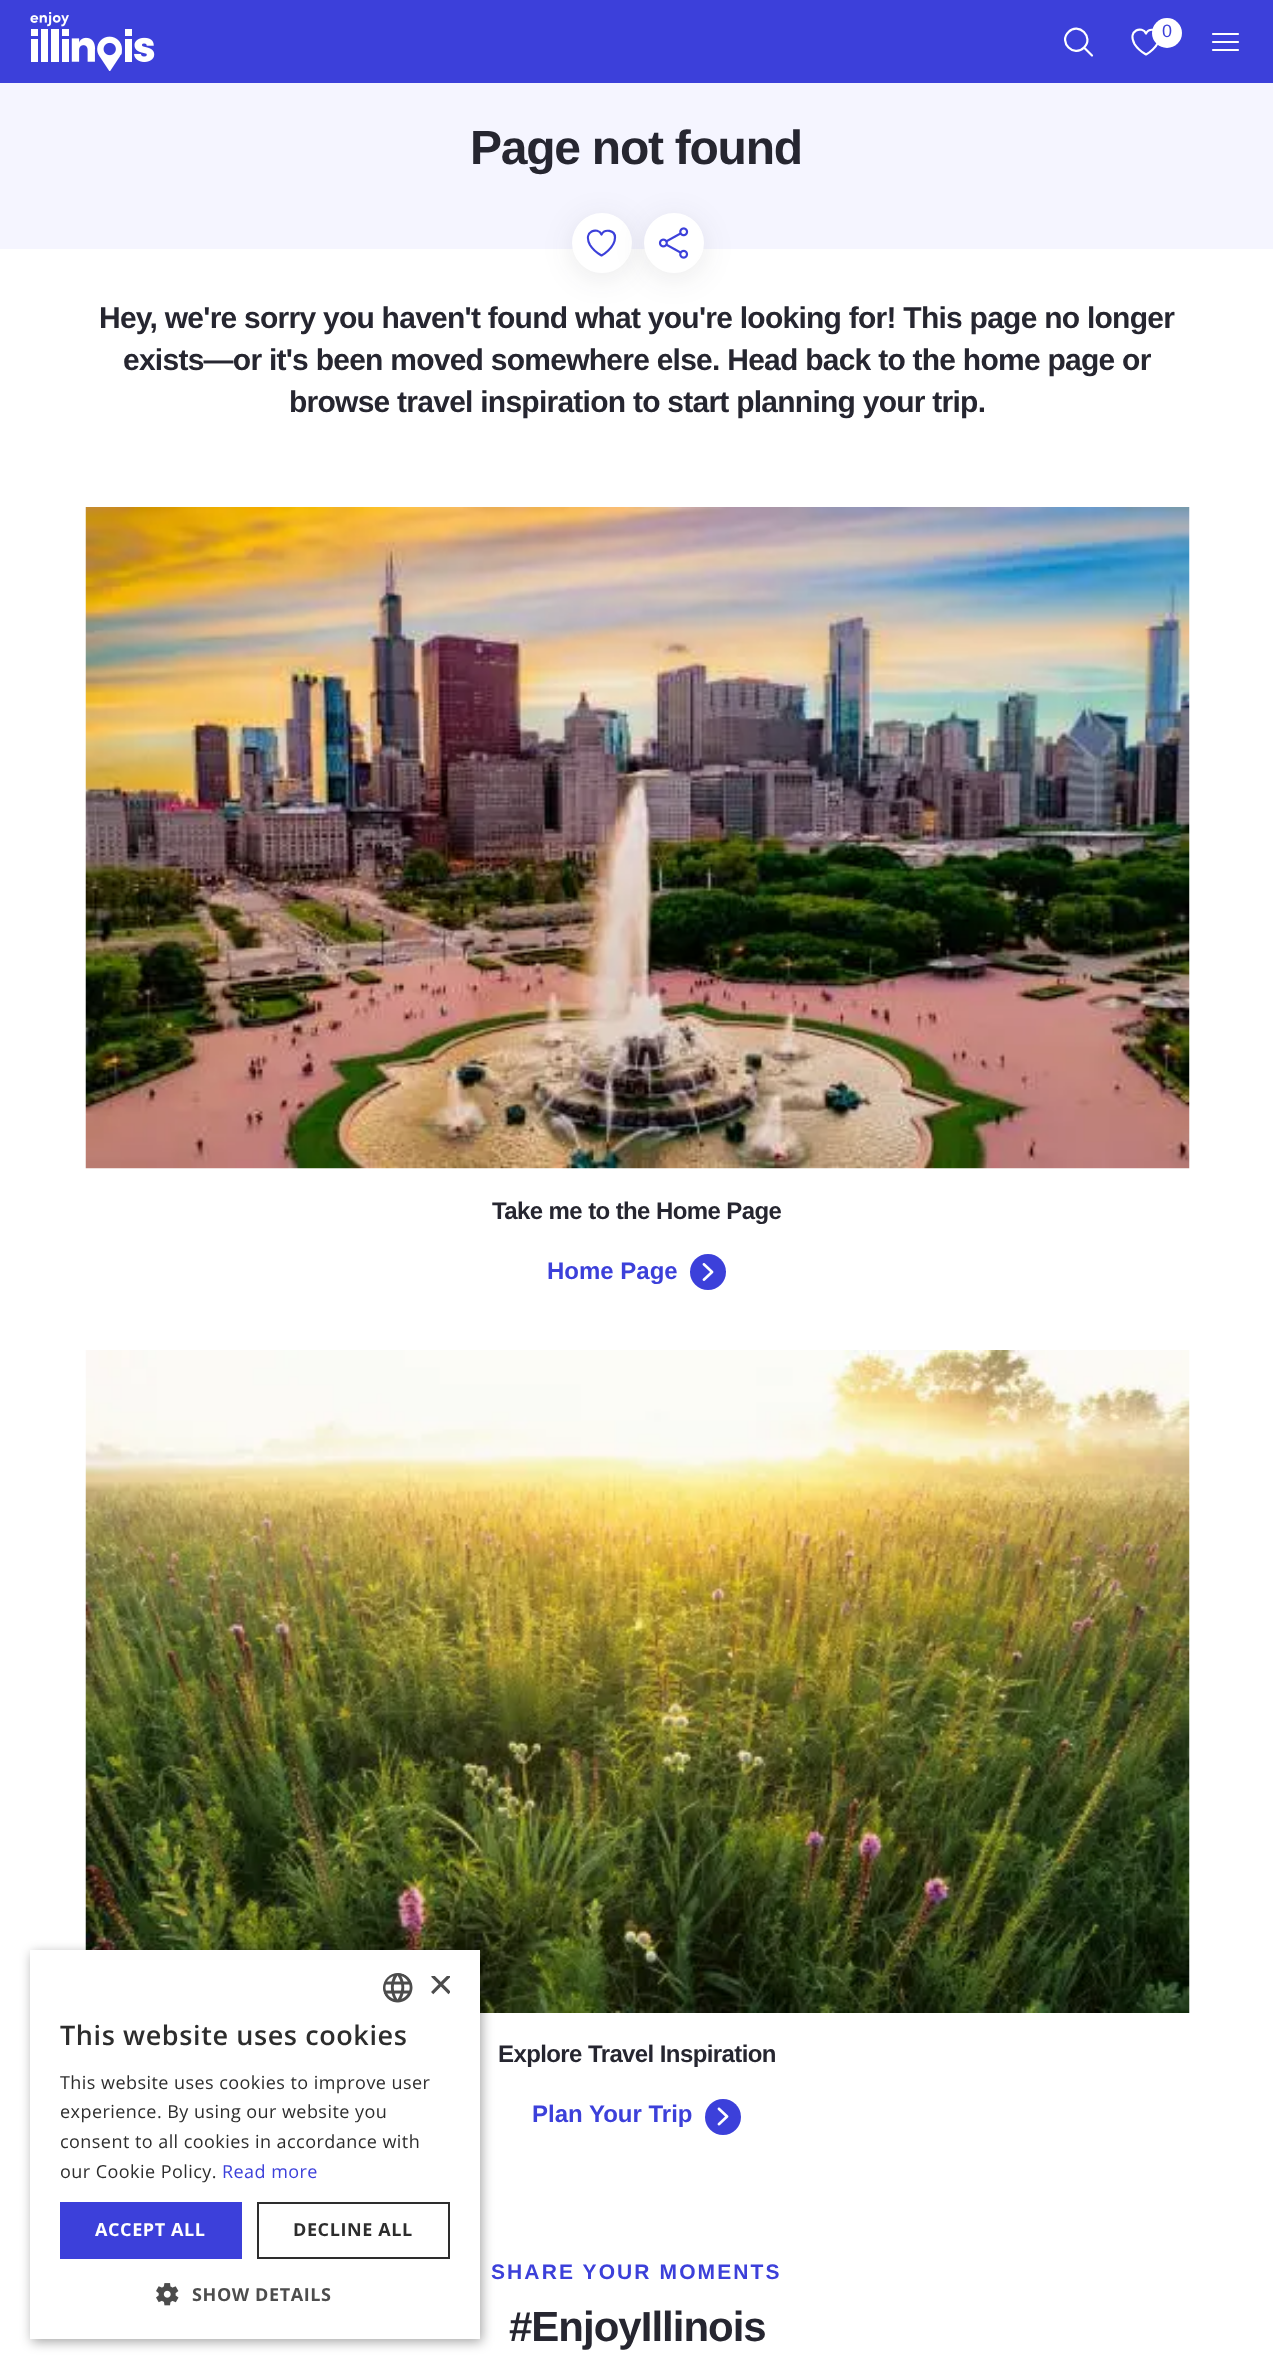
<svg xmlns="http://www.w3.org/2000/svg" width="1273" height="2368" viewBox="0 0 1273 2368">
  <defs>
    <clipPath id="clip1"><path d="M428 1976h22v22H428z"/></clipPath>
  </defs>
  <rect width="100%" height="100%" fill="#fff"/>
  <path d="M0 0h1273v83H0z" fill="#3c40da"/>
  <image x="30" y="12" width="125" height="59" href="img/1.png"/>
  <path d="M1092 55.5L1084 47.5M1084 47.5C1094.5 37.5 1078.5 21.5 1068.5 32C1058 42 1074 58 1084 47.5Z" fill="none" stroke="#fff" stroke-width="2.2" stroke-linecap="round" stroke-linejoin="round"/>
  <path d="M1159.5 36.5C1159.5 29 1149 27.5 1146 33.5C1142.5 25.5 1127 30 1134.5 44C1137 48 1141.5 52 1146 54.5C1146 54.5 1159.5 47 1159.5 36.5Z" fill="none" stroke="#fff" stroke-width="2.2" stroke-linecap="round" stroke-linejoin="round"/>
  <circle cx="1167" cy="33" r="15" fill="#fff"/>
  <path d="M1213 34H1238M1213 42H1238M1213 50H1238" fill="none" stroke="#fff" stroke-width="2.2" stroke-linecap="round" stroke-linejoin="round"/>
  <path d="M0 83h1273v166H0z" fill="#f5f5ff"/>
  <rect x="572" y="218" width="60" height="60" rx="30" fill="#2626301a" filter="blur(15px)"/>
  <circle cx="602" cy="243" r="29" fill="#fff" stroke="#fff" stroke-width="2"/>
  <rect x="644" y="218" width="60" height="60" rx="30" fill="#2626301a" filter="blur(15px)"/>
  <path d="M615 237.5C615 230 604.5 228.5 601.5 234.5C598 226.5 582.5 231 590 245C592.5 249 597 253 601.5 255.5C601.5 255.5 615 248 615 237.5Z" fill="none" stroke="#3c40da" stroke-width="2.2" stroke-linecap="round" stroke-linejoin="round"/>
  <circle cx="674" cy="243" r="29" fill="#fff" stroke="#fff" stroke-width="2"/>
  <image x="658" y="227" width="31" height="32" href="img/2.png"/>
  <image x="85" y="507" width="1105" height="662" href="img/3.png"/>
  <circle cx="708" cy="1272" r="18" fill="#3c40da"/>
  <image x="702" y="1263" width="12" height="18" href="img/4.png"/>
  <image x="85" y="1350" width="1105" height="663" href="img/5.png"/>
  <circle cx="723" cy="2117" r="18" fill="#3c40da"/>
  <image x="717" y="2107" width="12" height="19" href="img/6.png"/>
  <path d="M32 1953h450v389H32z" fill="#00000059" filter="blur(6px)"/>
  <path d="M30 1950h450v389H30z" fill="#fff"/>
  <image x="383" y="1973" width="30" height="30" href="img/7.png"/>
  <path d="M60 2202h182v57H60z" fill="#3c40da"/>
  <path d="M258 2203h191v55H258z" fill="none" stroke="#2d2d2d" stroke-width="2"/>
  <image x="156" y="2283" width="23" height="23" href="img/8.png"/>
  <text x="1162" y="37" font-family="Liberation Sans" font-size="18" fill="#3c40da">0</text>
  <text x="470" y="164" font-family="Liberation Sans" font-size="48" font-weight="bold" letter-spacing="-1.25" fill="#262630">Page not found</text>
  <g font-family="Liberation Sans" font-size="30" font-weight="bold" letter-spacing="-0.75" fill="#262630">
    <text x="99" y="328">Hey, we're sorry you haven't found what you're looking for! This page no longer</text>
    <text x="123" y="370">exists—or it's been moved somewhere else. Head back to the home page or</text>
    <text x="289" y="412">browse travel inspiration to start planning your trip.</text>
  </g>
  <text x="492" y="1219" font-family="Liberation Sans" font-size="24" font-weight="bold" letter-spacing="-0.6" fill="#262630">Take me to the Home Page</text>
  <text x="547" y="1279" font-family="Liberation Sans" font-size="24" font-weight="bold" fill="#3c40da">Home Page</text>
  <text x="498" y="2062" font-family="Liberation Sans" font-size="24" font-weight="bold" letter-spacing="-0.6" fill="#262630">Explore Travel Inspiration</text>
  <text x="532" y="2122" font-family="Liberation Sans" font-size="24" font-weight="bold" fill="#3c40da">Plan Your Trip</text>
  <g clip-path="url(#clip1)">
    <text x="428" y="1999" font-family="Liberation Sans" font-size="44" fill="#4d4d4d">×</text>
  </g>
  <text x="60" y="2045" font-family="Open Sans" font-size="27" font-weight="600" letter-spacing="0.6" fill="#2d2d2d">This website uses cookies</text>
  <g font-family="Open Sans" font-size="18" letter-spacing="0.45" fill="#2d2d2d">
    <text x="60" y="2089">This website uses cookies to improve user</text>
    <text x="60" y="2118">experience. By using our website you</text>
    <text x="60" y="2148">consent to all cookies in accordance with</text>
    <text x="60" y="2178">our Cookie Policy.</text>
  </g>
  <text x="222" y="2178" font-family="Open Sans" font-size="18" letter-spacing="0.45" fill="#3c40da">Read more</text>
  <text x="95" y="2236" font-family="Open Sans" font-size="18" font-weight="bold" letter-spacing="0.6" fill="#fff">ACCEPT ALL</text>
  <text x="293" y="2236" font-family="Open Sans" font-size="18" font-weight="bold" letter-spacing="0.6" fill="#2d2d2d">DECLINE ALL</text>
  <text x="192" y="2301" font-family="Open Sans" font-size="18" font-weight="bold" letter-spacing="0.6" fill="#4d4d4d">SHOW DETAILS</text>
  <text x="491" y="2279" font-family="Liberation Sans" font-size="21" font-weight="bold" letter-spacing="2.1" fill="#3c40da">SHARE YOUR MOMENTS</text>
  <text x="509" y="2341" font-family="Liberation Sans" font-size="42" font-weight="bold" letter-spacing="-1" fill="#262630">#EnjoyIllinois</text>
</svg>
